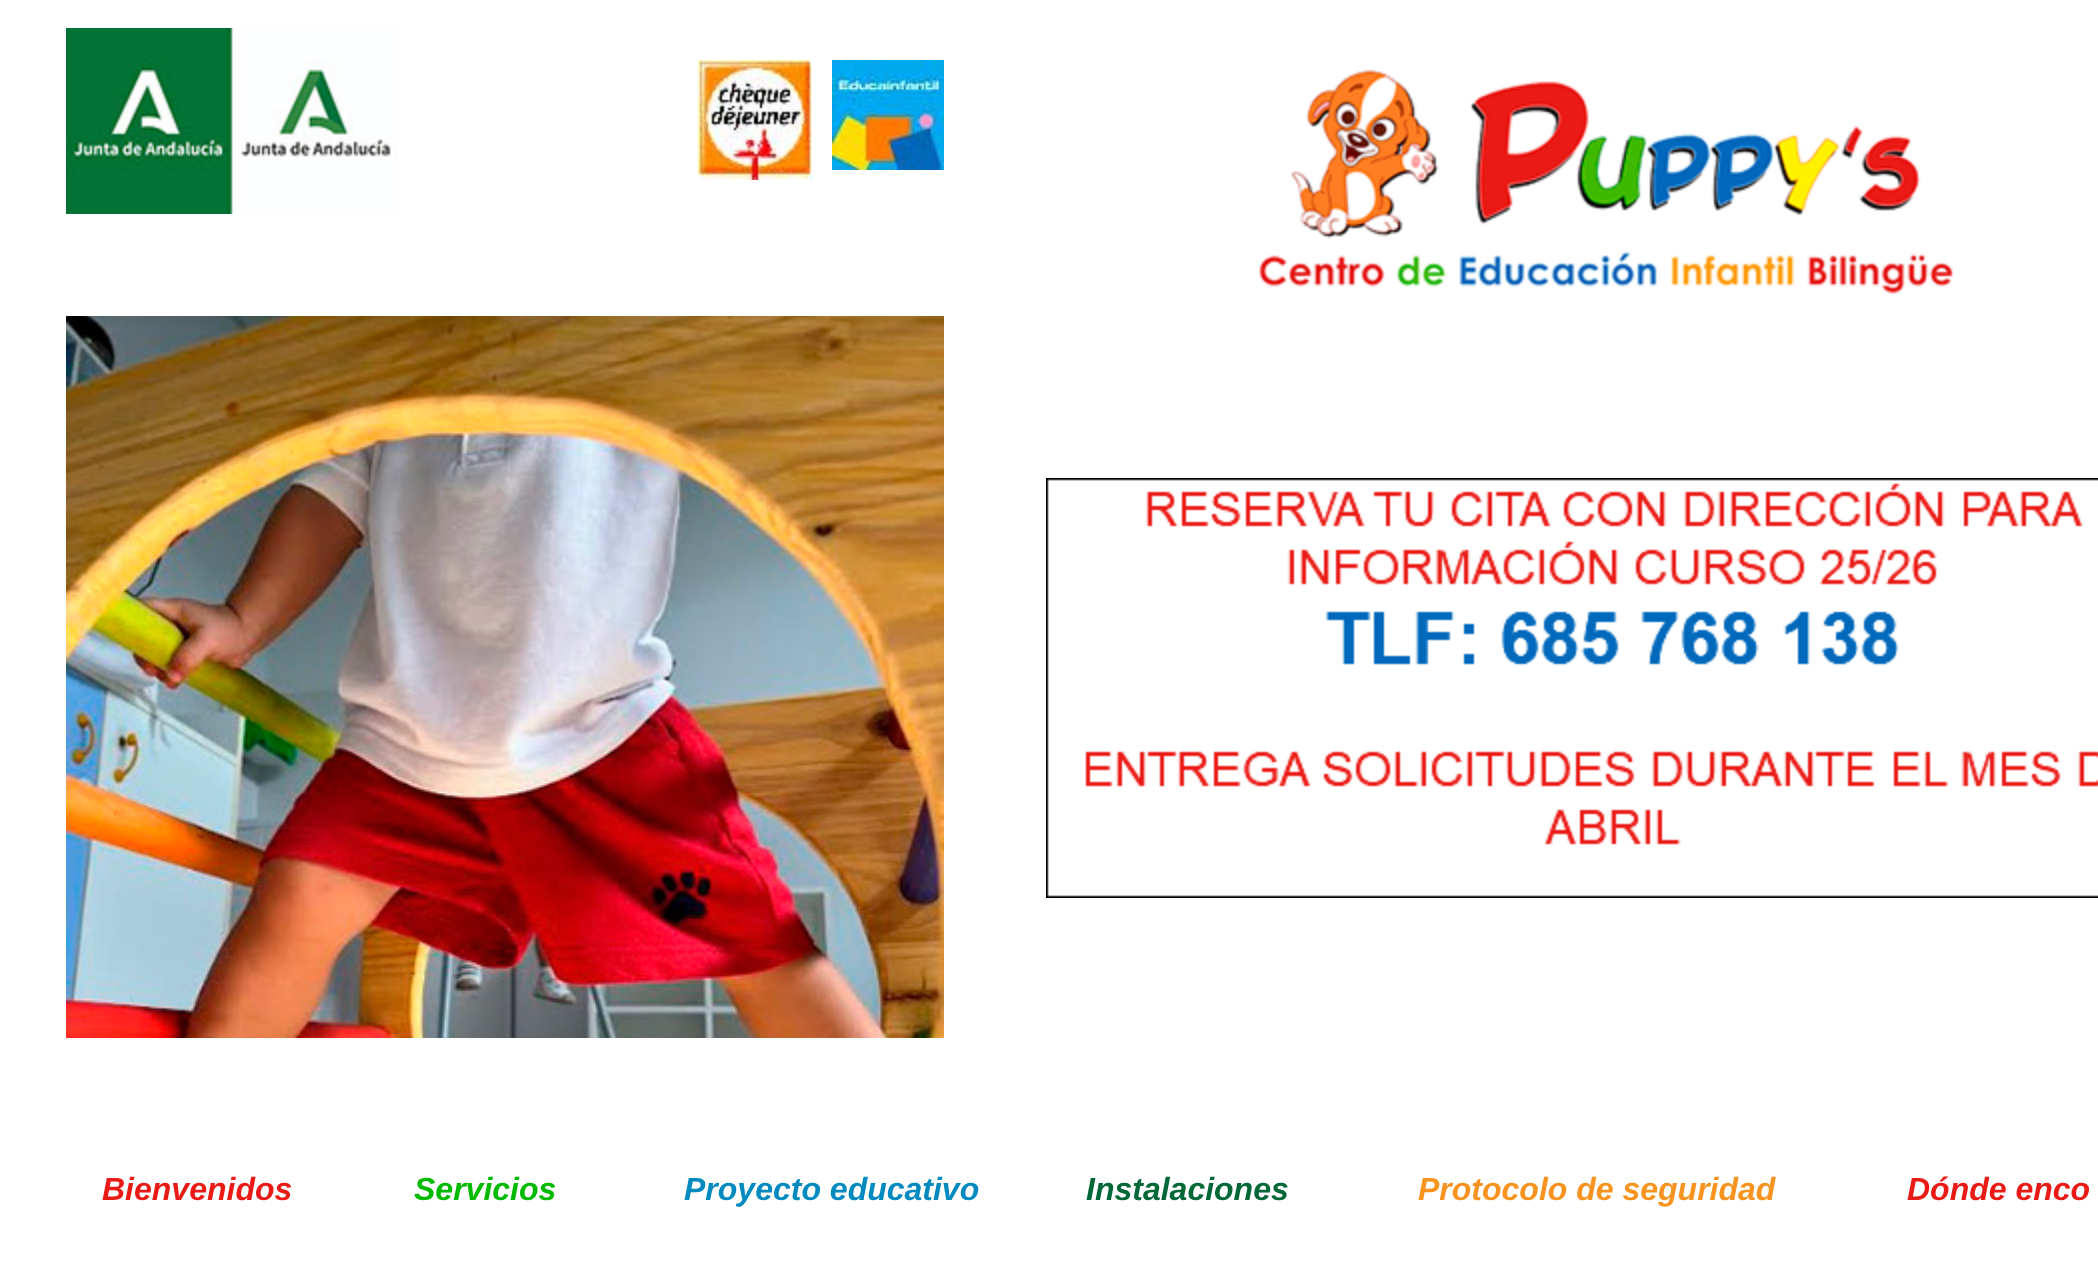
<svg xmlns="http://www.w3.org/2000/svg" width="2098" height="1283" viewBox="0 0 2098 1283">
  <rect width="100%" height="100%" fill="#fff"/>
  <image x="66" y="28" width="332" height="186" href="img/1.png"/>
  <image x="698" y="60" width="114" height="120" href="img/2.png"/>
  <image x="832" y="60" width="112" height="110" href="img/3.png"/>
  <image x="66" y="316" width="878" height="722" href="img/4.png"/>
  <image x="1258" y="69" width="696" height="225" href="img/5.png"/>
  <image x="1046" y="478" width="1052" height="420" href="img/6.png"/>
  <text x="102" y="1200" font-family="Liberation Sans" font-size="32" font-weight="bold" font-style="italic" fill="#ea1b16">Bienvenidos</text>
  <text x="414" y="1200" font-family="Liberation Sans" font-size="32" font-weight="bold" font-style="italic" fill="#00ba00">Servicios</text>
  <text x="684" y="1200" font-family="Liberation Sans" font-size="32" font-weight="bold" font-style="italic" fill="#008abf">Proyecto educativo</text>
  <text x="1086" y="1200" font-family="Liberation Sans" font-size="32" font-weight="bold" font-style="italic" fill="#006837">Instalaciones</text>
  <text x="1418" y="1200" font-family="Liberation Sans" font-size="32" font-weight="bold" font-style="italic" fill="#f7931e">Protocolo de seguridad</text>
  <text x="1907" y="1200" font-family="Liberation Sans" font-size="32" font-weight="bold" font-style="italic" fill="#ea1b16">Dónde enco</text>
</svg>
